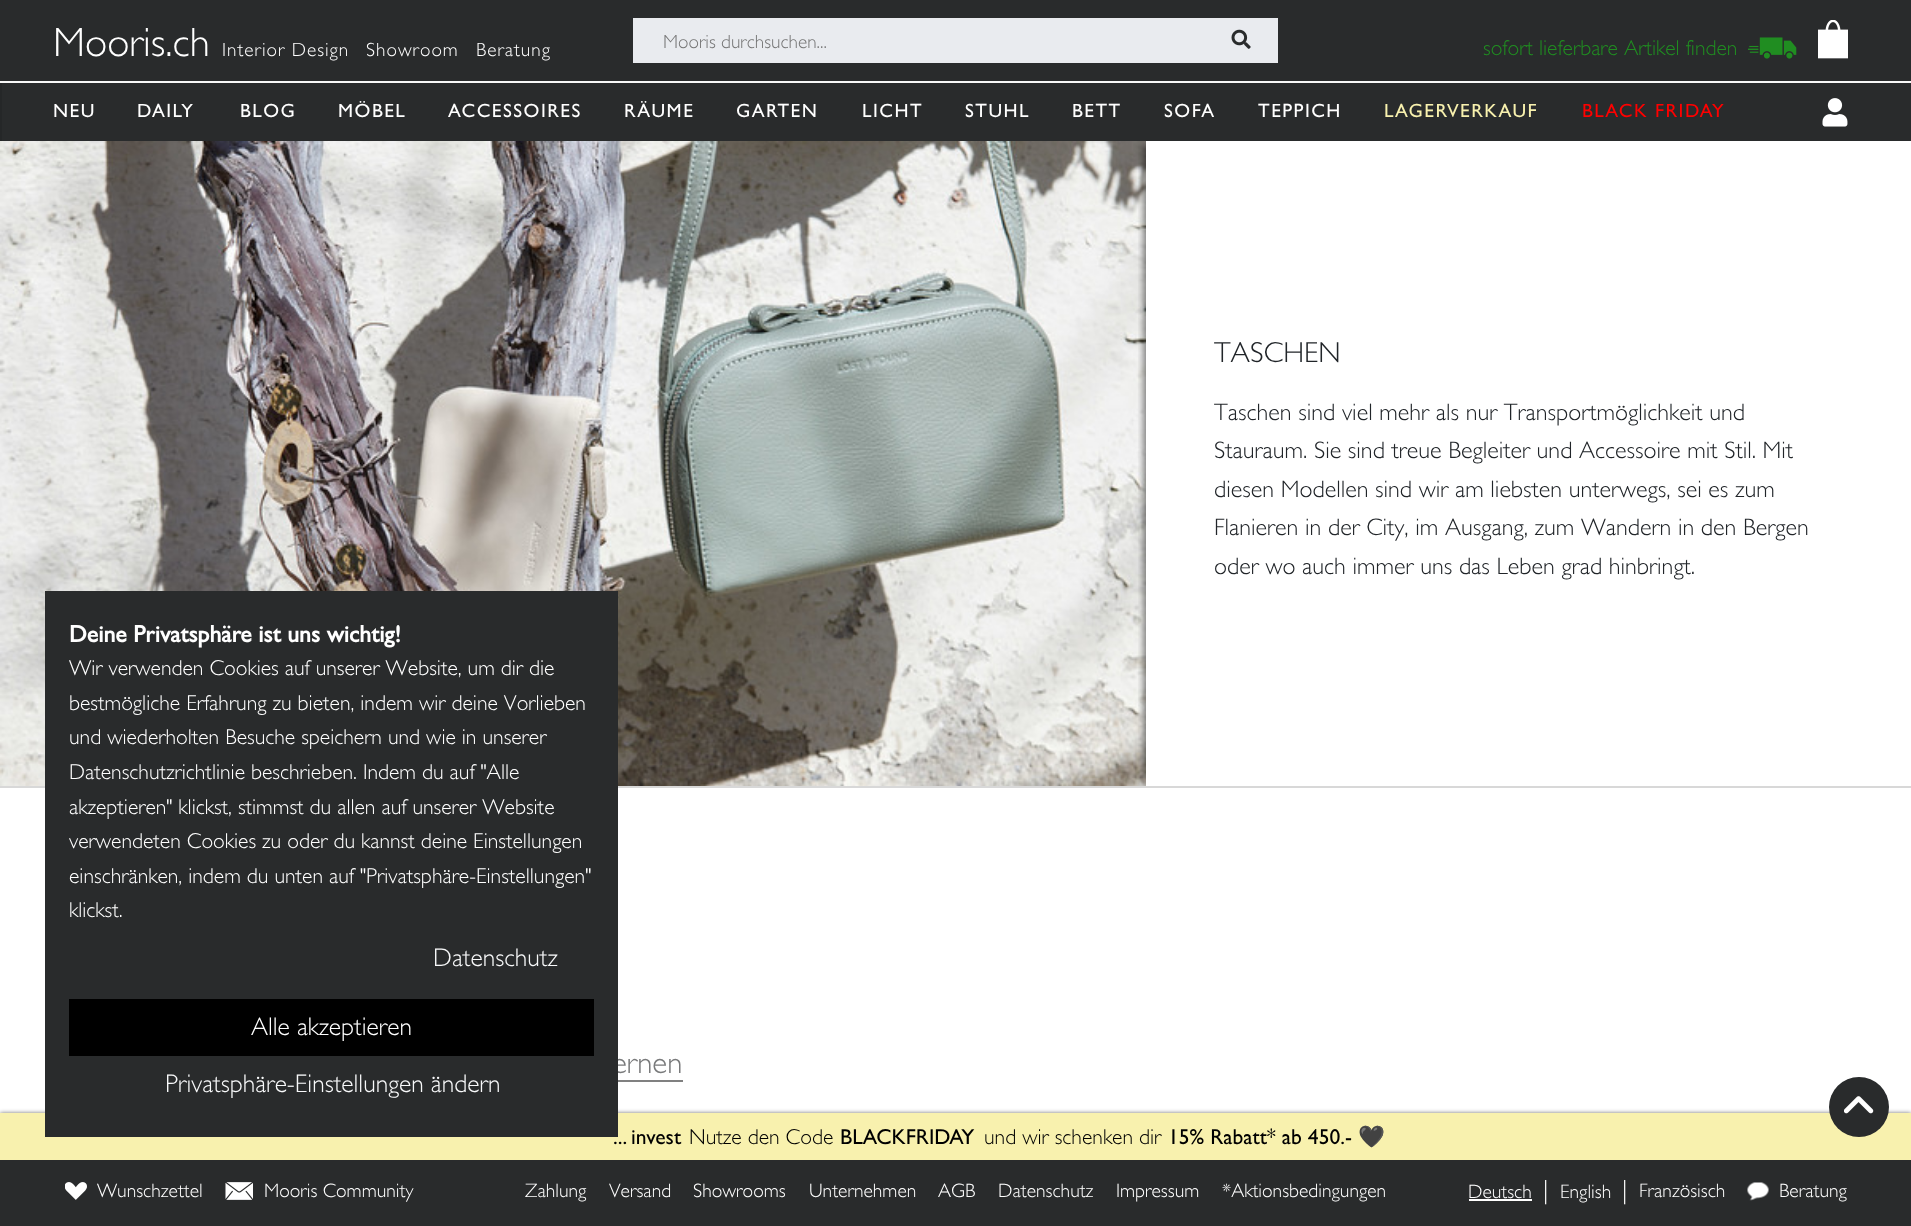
<svg xmlns="http://www.w3.org/2000/svg" width="1911" height="1226" viewBox="0 0 1911 1226">
  <defs>
    <clipPath id="clip1"><path d="M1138 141h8v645H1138z"/></clipPath>
    <clipPath id="clip2"><path d="M38 81h1686v60H38z"/></clipPath>
  </defs>
  <rect width="100%" height="100%" fill="#fff"/>
  <path d="M0 0h1911v81H0z" fill="#292b2c"/>
  <path d="M0 81h2v60H0z" fill="#252728"/>
  <path d="M0 81h1911v2H0z" fill="#f8f8f8"/>
  <path d="M633 18h645v45H633z" fill="#e9ebef"/>
  <image x="1231" y="29" width="20" height="20" href="img/1.png"/>
  <image x="1748" y="37" width="49" height="22" href="img/2.png"/>
  <image x="1818" y="20" width="30" height="39" href="img/3.png"/>
  <path d="M0 786h1911v2H0z" fill="#d8d8d8"/>
  <image x="0" y="141" width="1146" height="645" href="img/5.png"/>
  <g clip-path="url(#clip1)">
    <path d="M1143 146h756v636H1143z" fill="#00000073" filter="blur(3px)"/>
  </g>
  <path d="M2 83h1909v58H2z" fill="#292b2c"/>
  <image x="1822" y="98" width="26" height="29" href="img/4.png"/>
  <path d="M618 1080h65v2H618z" fill="#808080"/>
  <path d="M0 1113h1911v47H0z" fill="#0000008c" filter="blur(2px)"/>
  <path d="M0 1160h1911v66H0z" fill="#292b2c"/>
  <image x="65" y="1182" width="22" height="18" href="img/6.png"/>
  <image x="225" y="1182" width="28" height="18" href="img/7.png"/>
  <path d="M1469 1199h63v2H1469z" fill="#fff"/>
  <image x="1747" y="1182" width="22" height="19" href="img/8.png"/>
  <path d="M0 1113h1911v47H0z" fill="#f8f1ae"/>
  <circle cx="1859" cy="1107" r="30" fill="#292b2c"/>
  <image x="1844" y="1096" width="30" height="18" href="img/9.png"/>
  <text x="53" y="56" font-family="Gill Sans" font-size="41" font-weight="300" fill="#fff">Mooris.ch</text>
  <g font-family="Gill Sans" font-size="19.25" font-weight="300" letter-spacing="1" fill="#fff">
    <text x="222" y="56">Interior Design</text>
    <text x="366" y="56">Showroom</text>
    <text x="476" y="56">Beratung</text>
  </g>
  <text x="663" y="48" font-family="Gill Sans" font-size="19.25" font-weight="300" fill="#757575">Mooris durchsuchen...</text>
  <text x="1483" y="55" font-family="Gill Sans" font-size="21.6" font-weight="300" fill="#208d21">sofort lieferbare Artikel finden</text>
  <g font-family="Gill Sans" font-size="19.25" letter-spacing="1.5" fill="#fff">
    <text x="53" y="117">NEU</text>
    <text x="137" y="117">DAILY</text>
    <text x="240" y="117">BLOG</text>
    <text x="338" y="117">MÖBEL</text>
    <text x="448" y="117">ACCESSOIRES</text>
    <text x="624" y="117">RÄUME</text>
    <text x="736" y="117">GARTEN</text>
    <text x="862" y="117">LICHT</text>
    <text x="965" y="117">STUHL</text>
    <text x="1072" y="117">BETT</text>
    <text x="1164" y="117">SOFA</text>
    <text x="1258" y="117">TEPPICH</text>
  </g>
  <text x="1384" y="117" font-family="Gill Sans" font-size="19.25" letter-spacing="1.5" fill="#f8f1ae">LAGERVERKAUF</text>
  <g clip-path="url(#clip2)">
    <text x="1582" y="117" font-family="Gill Sans" font-size="19.25" letter-spacing="1.5" fill="#f00">BLACK FRIDAY</text>
  </g>
  <text x="1214" y="362" font-family="Gill Sans" font-size="29" font-weight="300" fill="#212529">TASCHEN</text>
  <g font-family="Gill Sans" font-size="24" font-weight="300" fill="#212529">
    <text x="1214" y="420">Taschen sind viel mehr als nur Transportmöglichkeit und</text>
    <text x="1214" y="458">Stauraum. Sie sind treue Begleiter und Accessoire mit Stil. Mit</text>
    <text x="1214" y="497">diesen Modellen sind wir am liebsten unterwegs, sei es zum</text>
    <text x="1214" y="535">Flanieren in der City, im Ausgang, zum Wandern in den Bergen</text>
    <text x="1214" y="574">oder wo auch immer uns das Leben grad hinbringt.</text>
  </g>
  <text x="612" y="1073" font-family="Gill Sans" font-size="31" font-weight="300" fill="#797a7b">ernen</text>
  <g font-family="Gill Sans" font-size="19.5" font-weight="300" fill="#fff">
    <text x="97" y="1197">Wunschzettel</text>
    <text x="264" y="1197">Mooris Community</text>
    <text x="525" y="1197">Zahlung</text>
    <text x="609" y="1197">Versand</text>
    <text x="693" y="1197">Showrooms</text>
    <text x="809" y="1197">Unternehmen</text>
    <text x="938" y="1197">AGB</text>
    <text x="998" y="1197">Datenschutz</text>
    <text x="1116" y="1197">Impressum</text>
    <text x="1222" y="1197">*Aktionsbedingungen</text>
    <text x="1468" y="1198">Deutsch</text>
  </g>
  <text x="1543" y="1198" font-family="Gill Sans" font-size="24" font-weight="300" fill="#fff">|</text>
  <text x="1560" y="1198" font-family="Gill Sans" font-size="19.5" font-weight="300" fill="#fff">English</text>
  <text x="1622" y="1198" font-family="Gill Sans" font-size="24" font-weight="300" fill="#fff">|</text>
  <g font-family="Gill Sans" font-size="19.5" font-weight="300" fill="#fff">
    <text x="1639" y="1197">Französisch</text>
    <text x="1779" y="1197">Beratung</text>
  </g>
  <text x="613" y="1144" font-family="Gill Sans" font-size="21.6" fill="#000">... invest</text>
  <path d="M45 591h573v546H45z" fill="#292b2c"/>
  <text x="165" y="1092" font-family="Gill Sans" font-size="25.5" font-weight="300" fill="#f8f9fa">Privatsphäre-Einstellungen ändern</text>
  <path d="M69 999h525v57H69z" fill="#000"/>
  <text x="251" y="1035" font-family="Gill Sans" font-size="25.5" font-weight="300" fill="#fff">Alle akzeptieren</text>
  <text x="433" y="966" font-family="Gill Sans" font-size="25.5" font-weight="300" fill="#f8f9fa">Datenschutz</text>
  <g font-family="Gill Sans" font-size="21.6" font-weight="300" fill="#fff">
    <text x="69" y="917">klickst.</text>
    <text x="69" y="883">einschränken, indem du unten auf "Privatsphäre-Einstellungen"</text>
    <text x="69" y="848">verwendeten Cookies zu oder du kannst deine Einstellungen</text>
    <text x="69" y="814">akzeptieren" klickst, stimmst du allen auf unserer Website</text>
    <text x="69" y="779">Datenschutzrichtlinie beschrieben. Indem du auf "Alle</text>
    <text x="69" y="744">und wiederholten Besuche speichern und wie in unserer</text>
    <text x="69" y="710">bestmögliche Erfahrung zu bieten, indem wir deine Vorlieben</text>
    <text x="69" y="675">Wir verwenden Cookies auf unserer Website, um dir die</text>
  </g>
  <text x="69" y="642" font-family="Gill Sans" font-size="23.75" font-weight="bold" fill="#fff">Deine Privatsphäre ist uns wichtig!</text>
  <text x="689" y="1144" font-family="Gill Sans" font-size="21.6" font-weight="300" fill="#000">Nutze den Code</text>
  <text x="840" y="1144" font-family="Gill Sans" font-size="21.6" fill="#000">BLACKFRIDAY</text>
  <text x="984" y="1144" font-family="Gill Sans" font-size="21.6" font-weight="300" fill="#000">und wir schenken dir</text>
  <text x="1168" y="1144" font-family="Gill Sans" font-size="21.6" fill="#000">15% Rabatt* ab 450.-</text>
  <text x="1358" y="1144" font-family="Noto Color Emoji" font-size="21.6" fill="#000">🖤</text>
</svg>
